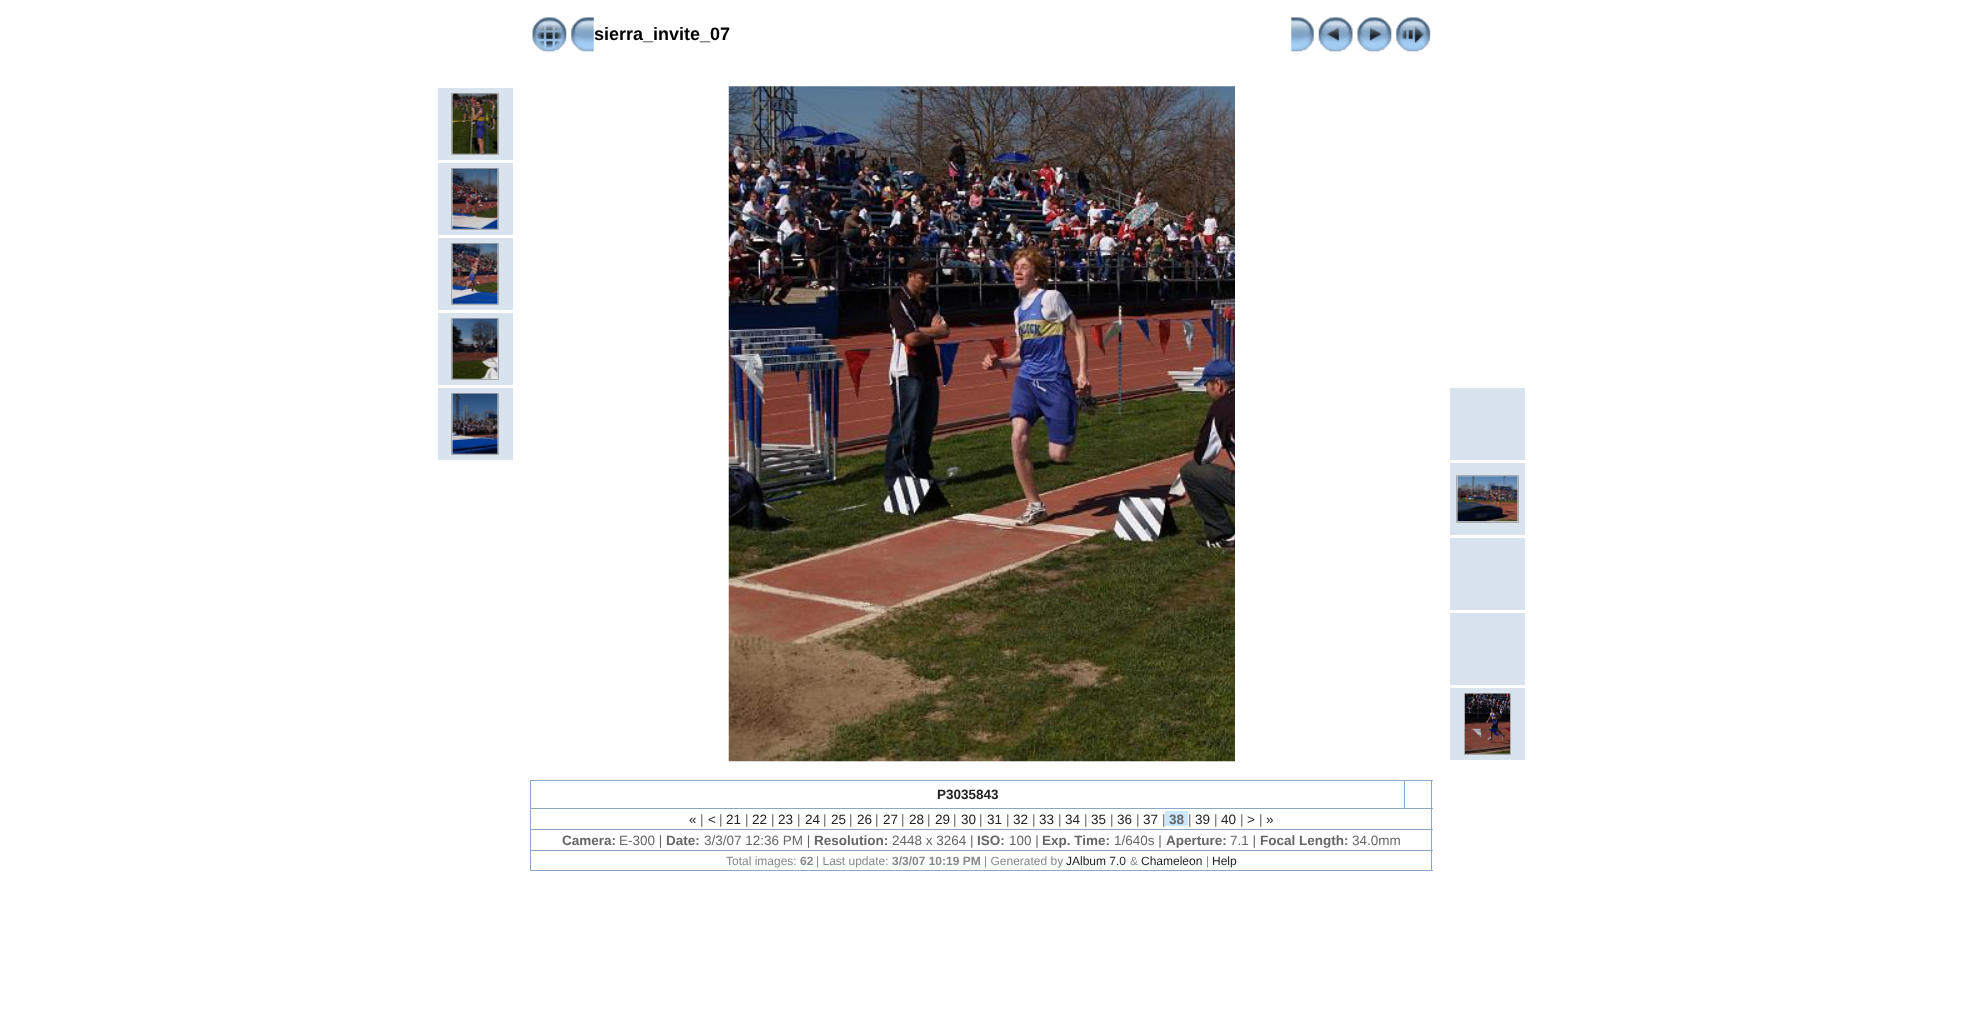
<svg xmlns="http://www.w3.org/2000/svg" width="1962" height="1022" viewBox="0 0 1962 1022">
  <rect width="100%" height="100%" fill="#fff"/>
  <image x="532" y="17" width="35" height="35" href="img/1.png"/>
  <image x="571" y="17" width="23" height="35" href="img/2.png"/>
  <image x="1291" y="17" width="23" height="35" href="img/3.png"/>
  <image x="1318" y="17" width="35" height="35" href="img/4.png"/>
  <image x="1357" y="17" width="35" height="35" href="img/5.png"/>
  <image x="1396" y="17" width="35" height="35" href="img/6.png"/>
  <path d="M438 88h75v72H438z" fill="#d8e3ed"/>
  <path d="M451.5 93.5h47v61H451.5z" fill="none" stroke="#aaa"/>
  <image x="452" y="93" width="46" height="61" href="img/7.png"/>
  <path d="M438 163h75v72H438z" fill="#d8e3ed"/>
  <path d="M451.5 168.5h47v61H451.5z" fill="none" stroke="#aaa"/>
  <image x="452" y="168" width="46" height="61" href="img/8.png"/>
  <path d="M438 238h75v72H438z" fill="#d8e3ed"/>
  <path d="M451.5 243.5h47v61H451.5z" fill="none" stroke="#aaa"/>
  <image x="452" y="243" width="46" height="61" href="img/9.png"/>
  <path d="M438 313h75v72H438z" fill="#d8e3ed"/>
  <path d="M451.5 318.5h47v61H451.5z" fill="none" stroke="#aaa"/>
  <image x="452" y="318" width="46" height="61" href="img/10.png"/>
  <path d="M438 388h75v72H438z" fill="#d8e3ed"/>
  <path d="M451.5 393.5h47v61H451.5z" fill="none" stroke="#aaa"/>
  <image x="452" y="393" width="46" height="61" href="img/11.png"/>
  <image x="728" y="86" width="507" height="676" href="img/12.png"/>
  <path d="M1450 388h75v72H1450z" fill="#d8e3ed"/>
  <path d="M1450 463h75v72H1450z" fill="#d8e3ed"/>
  <path d="M1456.5 475.5h62v47H1456.5z" fill="none" stroke="#aaa"/>
  <image x="1457" y="476" width="61" height="46" href="img/13.png"/>
  <path d="M1450 538h75v72H1450z" fill="#d8e3ed"/>
  <path d="M1450 613h75v72H1450z" fill="#d8e3ed"/>
  <path d="M1450 688h75v72H1450z" fill="#d8e3ed"/>
  <path d="M1464.5 693.5h46v61H1464.5z" fill="none" stroke="#aaa"/>
  <image x="1465" y="693" width="45" height="61" href="img/14.png"/>
  <path d="M530 780h903v1H530z" fill="#88a8ca"/>
  <path d="M1431 780h1v91H1431z" fill="#88a8ca"/>
  <path d="M530 870h903v1H530z" fill="#88a8ca"/>
  <path d="M530 780h1v91H530z" fill="#88a8ca"/>
  <path d="M530 808h903v1H530z" fill="#88a8ca"/>
  <path d="M1404 780h1v29H1404z" fill="#88a8ca"/>
  <path d="M1165 811h23v15H1165z" fill="#cce8ff"/>
  <path d="M530 829h903v1H530z" fill="#88a8ca"/>
  <path d="M530 850h903v1H530z" fill="#88a8ca"/>
  <text x="594" y="40" font-family="Liberation Sans" font-size="18" font-weight="bold" fill="#000">sierra_invite_07</text>
  <text x="937" y="799" font-family="Liberation Sans" font-size="13.5" font-weight="bold" fill="#222">P3035843</text>
  <text x="689" y="824" font-family="Liberation Sans" font-size="13.5" fill="#222">«</text>
  <text x="700" y="824" font-family="Liberation Sans" font-size="13.5" fill="#666">|</text>
  <text x="708" y="824" font-family="Liberation Sans" font-size="13.5" fill="#222">&lt;</text>
  <text x="719" y="824" font-family="Liberation Sans" font-size="13.5" fill="#666">|</text>
  <text x="726" y="824" font-family="Liberation Sans" font-size="13.5" fill="#222">21</text>
  <text x="745" y="824" font-family="Liberation Sans" font-size="13.5" fill="#666">|</text>
  <text x="752" y="824" font-family="Liberation Sans" font-size="13.5" fill="#222">22</text>
  <text x="771" y="824" font-family="Liberation Sans" font-size="13.5" fill="#666">|</text>
  <text x="778" y="824" font-family="Liberation Sans" font-size="13.5" fill="#222">23</text>
  <text x="797" y="824" font-family="Liberation Sans" font-size="13.5" fill="#666">|</text>
  <text x="805" y="824" font-family="Liberation Sans" font-size="13.5" fill="#222">24</text>
  <text x="823" y="824" font-family="Liberation Sans" font-size="13.5" fill="#666">|</text>
  <text x="831" y="824" font-family="Liberation Sans" font-size="13.5" fill="#222">25</text>
  <text x="849" y="824" font-family="Liberation Sans" font-size="13.5" fill="#666">|</text>
  <text x="857" y="824" font-family="Liberation Sans" font-size="13.5" fill="#222">26</text>
  <text x="875" y="824" font-family="Liberation Sans" font-size="13.5" fill="#666">|</text>
  <text x="883" y="824" font-family="Liberation Sans" font-size="13.5" fill="#222">27</text>
  <text x="901" y="824" font-family="Liberation Sans" font-size="13.5" fill="#666">|</text>
  <text x="909" y="824" font-family="Liberation Sans" font-size="13.5" fill="#222">28</text>
  <text x="927" y="824" font-family="Liberation Sans" font-size="13.5" fill="#666">|</text>
  <text x="935" y="824" font-family="Liberation Sans" font-size="13.5" fill="#222">29</text>
  <text x="953" y="824" font-family="Liberation Sans" font-size="13.5" fill="#666">|</text>
  <text x="961" y="824" font-family="Liberation Sans" font-size="13.5" fill="#222">30</text>
  <text x="979" y="824" font-family="Liberation Sans" font-size="13.5" fill="#666">|</text>
  <text x="987" y="824" font-family="Liberation Sans" font-size="13.5" fill="#222">31</text>
  <text x="1006" y="824" font-family="Liberation Sans" font-size="13.5" fill="#666">|</text>
  <text x="1013" y="824" font-family="Liberation Sans" font-size="13.5" fill="#222">32</text>
  <text x="1032" y="824" font-family="Liberation Sans" font-size="13.5" fill="#666">|</text>
  <text x="1039" y="824" font-family="Liberation Sans" font-size="13.5" fill="#222">33</text>
  <text x="1058" y="824" font-family="Liberation Sans" font-size="13.5" fill="#666">|</text>
  <text x="1065" y="824" font-family="Liberation Sans" font-size="13.5" fill="#222">34</text>
  <text x="1084" y="824" font-family="Liberation Sans" font-size="13.5" fill="#666">|</text>
  <text x="1091" y="824" font-family="Liberation Sans" font-size="13.5" fill="#222">35</text>
  <text x="1110" y="824" font-family="Liberation Sans" font-size="13.5" fill="#666">|</text>
  <text x="1117" y="824" font-family="Liberation Sans" font-size="13.5" fill="#222">36</text>
  <text x="1136" y="824" font-family="Liberation Sans" font-size="13.5" fill="#666">|</text>
  <text x="1143" y="824" font-family="Liberation Sans" font-size="13.5" fill="#222">37</text>
  <text x="1162" y="824" font-family="Liberation Sans" font-size="13.5" fill="#666">|</text>
  <text x="1169" y="824" font-family="Liberation Sans" font-size="13.5" font-weight="bold" fill="#666">38</text>
  <text x="1188" y="824" font-family="Liberation Sans" font-size="13.5" fill="#666">|</text>
  <text x="1195" y="824" font-family="Liberation Sans" font-size="13.5" fill="#222">39</text>
  <text x="1214" y="824" font-family="Liberation Sans" font-size="13.5" fill="#666">|</text>
  <text x="1221" y="824" font-family="Liberation Sans" font-size="13.5" fill="#222">40</text>
  <text x="1240" y="824" font-family="Liberation Sans" font-size="13.5" fill="#666">|</text>
  <text x="1247" y="824" font-family="Liberation Sans" font-size="13.5" fill="#222">&gt;</text>
  <text x="1259" y="824" font-family="Liberation Sans" font-size="13.5" fill="#666">|</text>
  <text x="1266" y="824" font-family="Liberation Sans" font-size="13.5" fill="#222">»</text>
  <text x="562" y="845" font-family="Liberation Sans" font-size="13.5" font-weight="bold" fill="#666">Camera:</text>
  <text x="619" y="845" font-family="Liberation Sans" font-size="13.5" fill="#666">E-300 |</text>
  <text x="666" y="845" font-family="Liberation Sans" font-size="13.5" font-weight="bold" fill="#666">Date:</text>
  <text x="704" y="845" font-family="Liberation Sans" font-size="13.5" fill="#666">3/3/07 12:36 PM |</text>
  <text x="814" y="845" font-family="Liberation Sans" font-size="13.5" font-weight="bold" fill="#666">Resolution:</text>
  <text x="892" y="845" font-family="Liberation Sans" font-size="13.5" fill="#666">2448 x 3264 |</text>
  <text x="977" y="845" font-family="Liberation Sans" font-size="13.5" font-weight="bold" fill="#666">ISO:</text>
  <text x="1009" y="845" font-family="Liberation Sans" font-size="13.5" fill="#666">100 |</text>
  <text x="1042" y="845" font-family="Liberation Sans" font-size="13.5" font-weight="bold" fill="#666">Exp. Time:</text>
  <text x="1114" y="845" font-family="Liberation Sans" font-size="13.5" fill="#666">1/640s |</text>
  <text x="1166" y="845" font-family="Liberation Sans" font-size="13.5" font-weight="bold" fill="#666">Aperture:</text>
  <text x="1230" y="845" font-family="Liberation Sans" font-size="13.5" fill="#666">7.1 |</text>
  <text x="1260" y="845" font-family="Liberation Sans" font-size="13.5" font-weight="bold" fill="#666">Focal Length:</text>
  <text x="1352" y="845" font-family="Liberation Sans" font-size="13.5" fill="#666">34.0mm</text>
  <text x="726" y="865" font-family="Liberation Sans" font-size="12" fill="#888">Total images:</text>
  <text x="800" y="865" font-family="Liberation Sans" font-size="12" font-weight="bold" fill="#888">62</text>
  <text x="816" y="865" font-family="Liberation Sans" font-size="12" fill="#888">| Last update:</text>
  <text x="892" y="865" font-family="Liberation Sans" font-size="12" font-weight="bold" fill="#888">3/3/07 10:19 PM</text>
  <text x="984" y="865" font-family="Liberation Sans" font-size="12" fill="#888">| Generated by</text>
  <text x="1066" y="865" font-family="Liberation Sans" font-size="12" fill="#222">JAlbum 7.0</text>
  <text x="1130" y="865" font-family="Liberation Sans" font-size="12" fill="#888">&amp;</text>
  <text x="1141" y="865" font-family="Liberation Sans" font-size="12" fill="#222">Chameleon</text>
  <text x="1206" y="865" font-family="Liberation Sans" font-size="12" fill="#888">|</text>
  <text x="1212" y="865" font-family="Liberation Sans" font-size="12" fill="#222">Help</text>
</svg>
